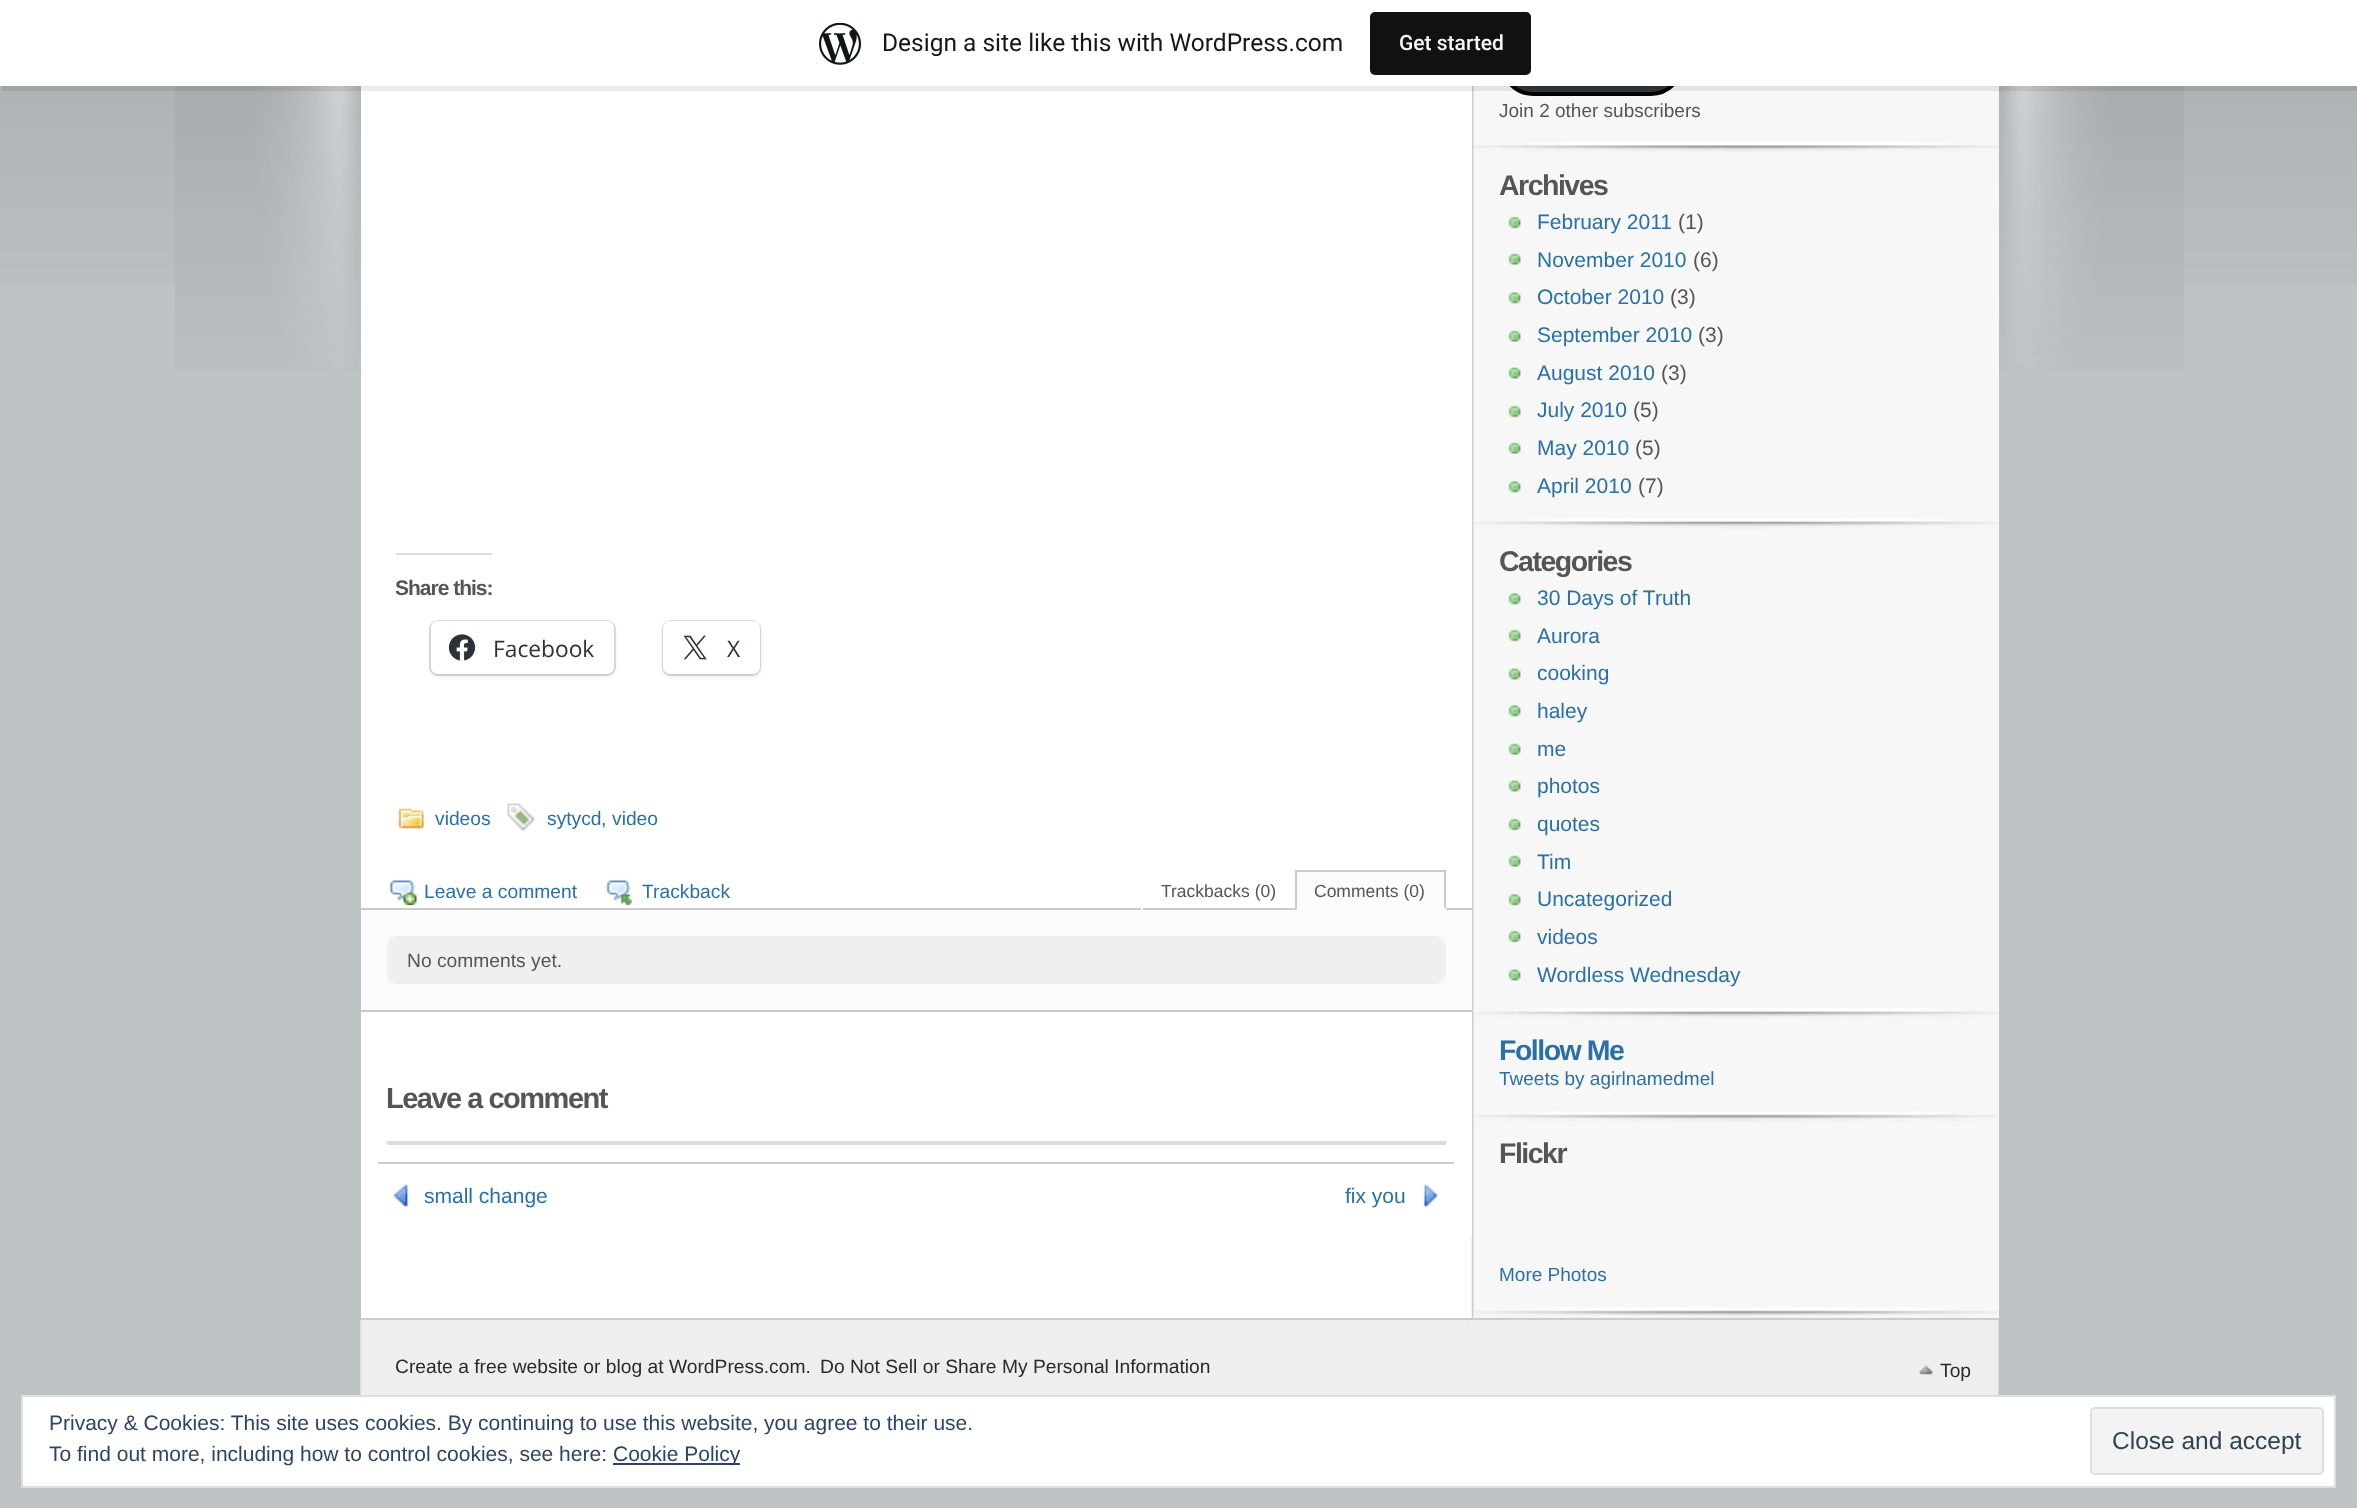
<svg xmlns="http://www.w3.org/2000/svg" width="2357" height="1508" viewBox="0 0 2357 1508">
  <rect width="100%" height="100%" fill="#bec3c6"/>
  <image x="0" y="86" width="2357" height="199" href="img/1.png"/>
  <image x="175" y="86" width="2009" height="286" href="img/3.png"/>
  <path d="M361 1236h1111v82H361z" fill="#fff"/>
  <image x="1471" y="86" width="3" height="1232" href="img/4.png"/>
  <path d="M361 86h1111v1150H361z" fill="#fff"/>
  <path d="M1474 86h525v1232H1474z" fill="#f7f7f7"/>
  <rect x="1502" y="32" width="180" height="62" rx="31" fill="#32373c" stroke="#000" stroke-width="4"/>
  <path d="M2 86V91H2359V5H2357V86Z" fill="#00000014"/>
  <path d="M0 0h2357v86H0z" fill="#fff"/>
  <image x="819" y="23" width="42" height="42" href="img/2.png"/>
  <rect x="1370" y="12" width="161" height="63" rx="5" fill="#111"/>
  <path d="M396 553h96v2H396z" fill="#dcdcde"/>
  <rect x="430" y="621" width="185" height="54" rx="8" fill="none" stroke="#e0e0e0" stroke-width="2"/>
  <rect x="431" y="623" width="183" height="53" rx="7" fill="#0000001f" filter="blur(2px)"/>
  <rect x="431" y="621" width="183" height="53" rx="7" fill="#fff"/>
  <image x="448" y="634" width="28" height="27" href="img/5.png"/>
  <rect x="663" y="621" width="97" height="54" rx="8" fill="none" stroke="#e0e0e0" stroke-width="2"/>
  <rect x="663" y="623" width="97" height="53" rx="7" fill="#0000001f" filter="blur(2px)"/>
  <rect x="663" y="621" width="97" height="53" rx="7" fill="#fff"/>
  <image x="683" y="635" width="24" height="25" href="img/6.png"/>
  <image x="398" y="808" width="26" height="21" href="img/7.png"/>
  <image x="507" y="803" width="29" height="29" href="img/8.png"/>
  <image x="388" y="880" width="29" height="25" href="img/9.png"/>
  <image x="605" y="880" width="27" height="25" href="img/10.png"/>
  <path d="M361 908h1111v2H361z" fill="#ccc"/>
  <path d="M1293 908h2v2H1293z" fill="#fff"/>
  <path d="M1293 908h2v2H1293z" fill="#ccc"/>
  <path d="M1141 908h2v2H1141z" fill="#fff"/>
  <path d="M1297 872h147v36H1297z" fill="#fcfcfc"/>
  <path d="M1295 870h151v2H1295z" fill="#ccc"/>
  <path d="M1444 870h2v40H1444z" fill="#ccc"/>
  <path d="M1295 908h151v2H1295z" fill="#fcfcfc"/>
  <path d="M1295 870h2v40H1295z" fill="#ccc"/>
  <path d="M361 910h1111v100H361z" fill="#fcfcfc"/>
  <path d="M361 1010h1111v2H361z" fill="#ccc"/>
  <path d="M387 936h1059v48H387z" fill="#edeff0"/>
  <image x="387" y="936" width="1059" height="48" href="img/11.png"/>
  <path d="M387 1141h1059v4H387z" fill="#dcdcde"/>
  <path d="M378 1162h1076v2H378z" fill="#ccc"/>
  <image x="393" y="1184" width="15" height="23" href="img/12.png"/>
  <image x="1424" y="1184" width="14" height="23" href="img/13.png"/>
  <image x="1473" y="142" width="525" height="11" href="img/14.png"/>
  <image x="1473" y="518" width="525" height="11" href="img/15.png"/>
  <image x="1508" y="216" width="13" height="13" href="img/16.png"/>
  <image x="1508" y="253" width="13" height="12" href="img/17.png"/>
  <image x="1508" y="292" width="13" height="12" href="img/18.png"/>
  <image x="1508" y="330" width="13" height="12" href="img/17.png"/>
  <image x="1508" y="367" width="13" height="12" href="img/19.png"/>
  <image x="1508" y="405" width="13" height="13" href="img/16.png"/>
  <image x="1508" y="442" width="13" height="12" href="img/17.png"/>
  <image x="1508" y="481" width="13" height="12" href="img/18.png"/>
  <image x="1473" y="1008" width="525" height="11" href="img/15.png"/>
  <image x="1508" y="593" width="13" height="12" href="img/18.png"/>
  <image x="1508" y="629" width="13" height="13" href="img/16.png"/>
  <image x="1508" y="668" width="13" height="12" href="img/19.png"/>
  <image x="1508" y="705" width="13" height="12" href="img/18.png"/>
  <image x="1508" y="743" width="13" height="12" href="img/17.png"/>
  <image x="1508" y="780" width="13" height="12" href="img/19.png"/>
  <image x="1508" y="818" width="13" height="13" href="img/16.png"/>
  <image x="1508" y="855" width="13" height="12" href="img/17.png"/>
  <image x="1508" y="894" width="13" height="12" href="img/18.png"/>
  <image x="1508" y="930" width="13" height="13" href="img/16.png"/>
  <image x="1508" y="969" width="13" height="12" href="img/19.png"/>
  <image x="1473" y="1111" width="525" height="11" href="img/20.png"/>
  <image x="1473" y="1307" width="525" height="11" href="img/20.png"/>
  <image x="360" y="1319" width="1639" height="76" href="img/21.png"/>
  <path d="M361 1318h1638v2H361z" fill="#ccc"/>
  <image x="1919" y="1365" width="14" height="10" href="img/22.png"/>
  <path d="M22 1396h2313v91H22z" fill="#fff" stroke="#dedede" stroke-width="2"/>
  <path d="M613 1463h127v2H613z" fill="#2e4467"/>
  <rect x="2091" y="1408" width="232" height="66" rx="4" fill="#f3f3f3" stroke="#dedede" stroke-width="2"/>
  <text x="882" y="51" font-family="Roboto" font-size="24.5" fill="#171717">Design a site like this with WordPress.com</text>
  <text x="1399" y="50" font-family="Roboto" font-size="21" font-weight="500" fill="#f6f7f7">Get started</text>
  <text x="395" y="595" font-family="Liberation Sans" font-size="21" font-weight="bold" letter-spacing="-1" fill="#555">Share this:</text>
  <g font-family="Open Sans" font-size="22.75" fill="#2c3338">
    <text x="493" y="657">Facebook</text>
    <text x="727" y="657">X</text>
  </g>
  <g font-family="Liberation Sans" font-size="19.25" fill="#2970a6">
    <text x="435" y="825">videos</text>
    <text x="547" y="825">sytycd</text>
  </g>
  <text x="601" y="825" font-family="Liberation Sans" font-size="19.25" fill="#555">,</text>
  <g font-family="Liberation Sans" font-size="19.25" fill="#2970a6">
    <text x="612" y="825">video</text>
    <text x="424" y="898">Leave a comment</text>
    <text x="642" y="898">Trackback</text>
  </g>
  <g font-family="Liberation Sans" font-size="17.5" fill="#555">
    <text x="1161" y="897">Trackbacks (0)</text>
    <text x="1314" y="897">Comments (0)</text>
  </g>
  <text x="407" y="967" font-family="Liberation Sans" font-size="19.25" fill="#555">No comments yet.</text>
  <text x="386" y="1108" font-family="Liberation Sans" font-size="29" font-weight="bold" letter-spacing="-1.5" fill="#555">Leave a comment</text>
  <g font-family="Liberation Sans" font-size="21" fill="#2970a6">
    <text x="424" y="1203">small change</text>
    <text x="1345" y="1203">fix you</text>
  </g>
  <text x="1499" y="117" font-family="Liberation Sans" font-size="19" fill="#555">Join 2 other subscribers</text>
  <text x="1499" y="195" font-family="Liberation Sans" font-size="28.5" font-weight="bold" letter-spacing="-1.5" fill="#555">Archives</text>
  <text x="1537" y="229" font-family="Liberation Sans" font-size="21" fill="#2970a6">February 2011</text>
  <text x="1678" y="229" font-family="Liberation Sans" font-size="21" fill="#555">(1)</text>
  <text x="1537" y="267" font-family="Liberation Sans" font-size="21" fill="#2970a6">November 2010</text>
  <text x="1693" y="267" font-family="Liberation Sans" font-size="21" fill="#555">(6)</text>
  <text x="1537" y="304" font-family="Liberation Sans" font-size="21" fill="#2970a6">October 2010</text>
  <text x="1670" y="304" font-family="Liberation Sans" font-size="21" fill="#555">(3)</text>
  <text x="1537" y="342" font-family="Liberation Sans" font-size="21" fill="#2970a6">September 2010</text>
  <text x="1698" y="342" font-family="Liberation Sans" font-size="21" fill="#555">(3)</text>
  <text x="1537" y="380" font-family="Liberation Sans" font-size="21" fill="#2970a6">August 2010</text>
  <text x="1661" y="380" font-family="Liberation Sans" font-size="21" fill="#555">(3)</text>
  <text x="1537" y="417" font-family="Liberation Sans" font-size="21" fill="#2970a6">July 2010</text>
  <text x="1633" y="417" font-family="Liberation Sans" font-size="21" fill="#555">(5)</text>
  <text x="1537" y="455" font-family="Liberation Sans" font-size="21" fill="#2970a6">May 2010</text>
  <text x="1635" y="455" font-family="Liberation Sans" font-size="21" fill="#555">(5)</text>
  <text x="1537" y="493" font-family="Liberation Sans" font-size="21" fill="#2970a6">April 2010</text>
  <text x="1638" y="493" font-family="Liberation Sans" font-size="21" fill="#555">(7)</text>
  <text x="1499" y="571" font-family="Liberation Sans" font-size="28.5" font-weight="bold" letter-spacing="-1.5" fill="#555">Categories</text>
  <g font-family="Liberation Sans" font-size="21" fill="#2970a6">
    <text x="1537" y="605">30 Days of Truth</text>
    <text x="1537" y="643">Aurora</text>
    <text x="1537" y="680">cooking</text>
    <text x="1537" y="718">haley</text>
    <text x="1537" y="756">me</text>
    <text x="1537" y="793">photos</text>
    <text x="1537" y="831">quotes</text>
    <text x="1537" y="869">Tim</text>
    <text x="1537" y="906">Uncategorized</text>
    <text x="1537" y="944">videos</text>
    <text x="1537" y="982">Wordless Wednesday</text>
  </g>
  <text x="1499" y="1060" font-family="Liberation Sans" font-size="28.5" font-weight="bold" letter-spacing="-1.5" fill="#2970a6">Follow Me</text>
  <text x="1499" y="1085" font-family="Liberation Sans" font-size="19" fill="#2970a6">Tweets by agirlnamedmel</text>
  <text x="1499" y="1163" font-family="Liberation Sans" font-size="28.5" font-weight="bold" letter-spacing="-1.5" fill="#555">Flickr</text>
  <text x="1499" y="1281" font-family="Liberation Sans" font-size="19" fill="#2970a6">More Photos</text>
  <g font-family="Liberation Sans" font-size="19.25" fill="#2a2a2a">
    <text x="395" y="1373">Create a free website or blog at WordPress.com.</text>
    <text x="820" y="1373">Do Not Sell or Share My Personal Information</text>
    <text x="1940" y="1377">Top</text>
  </g>
  <g font-family="Liberation Sans" font-size="21" fill="#2e4467">
    <text x="49" y="1430">Privacy &amp; Cookies: This site uses cookies. By continuing to use this website, you agree to their use.</text>
    <text x="49" y="1461">To find out more, including how to control cookies, see here:</text>
    <text x="613" y="1461">Cookie Policy</text>
  </g>
  <text x="2112" y="1449" font-family="Liberation Sans" font-size="24.5" fill="#2e4453">Close and accept</text>
</svg>
